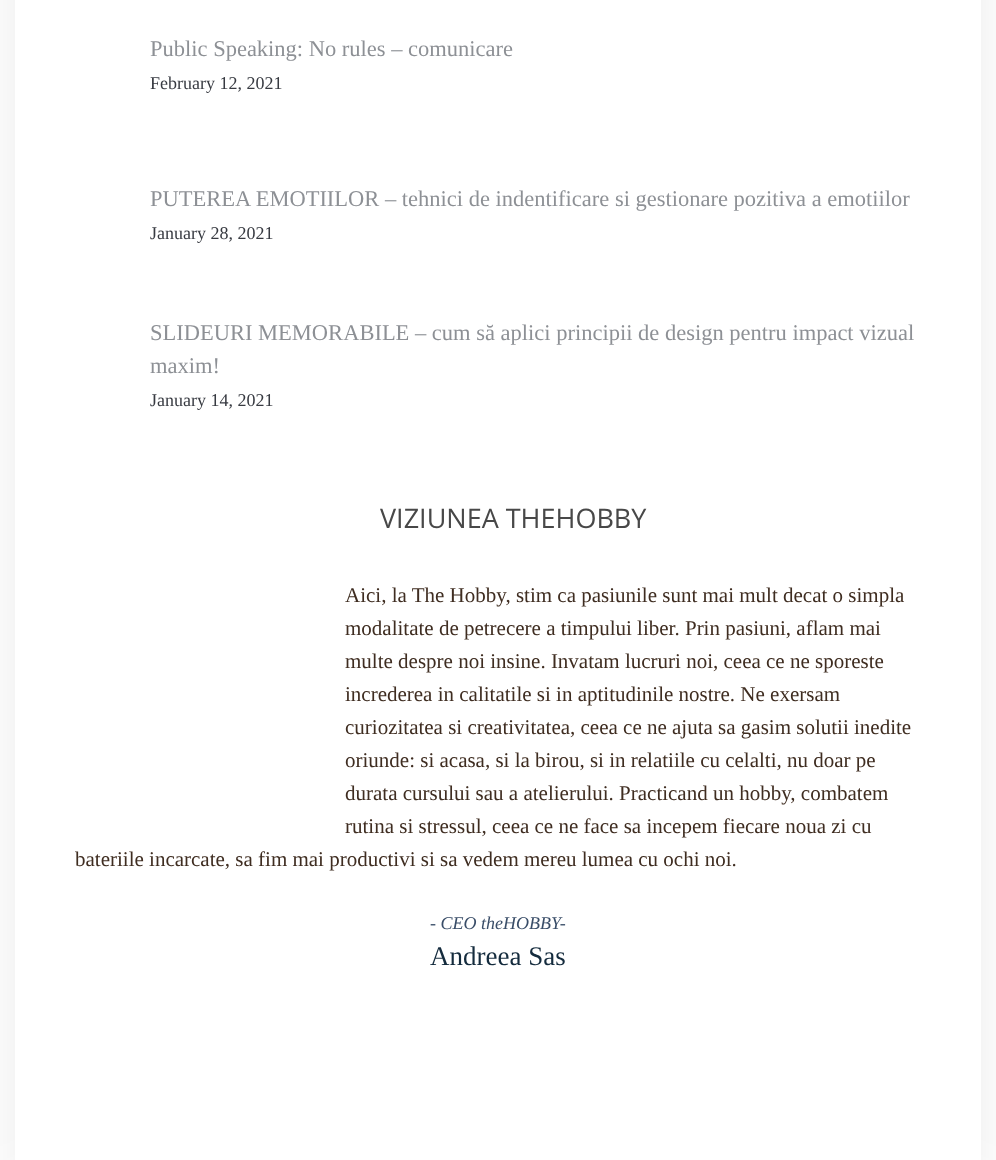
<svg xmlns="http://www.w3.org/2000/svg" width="996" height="1160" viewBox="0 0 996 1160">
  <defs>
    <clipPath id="clip1"><path d="M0 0H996V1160H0ZM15-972H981V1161H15Z" clip-rule="evenodd"/></clipPath>
  </defs>
  <rect width="100%" height="100%" fill="#fff"/>
  <g clip-path="url(#clip1)">
    <path d="M15 -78h966v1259H15z" fill="#00000014" filter="blur(26px)"/>
  </g>
  <text x="150" y="56" font-family="Liberation Serif" font-size="22.5" fill="#8d9095">Public Speaking: No rules – comunicare</text>
  <text x="150" y="89" font-family="Liberation Serif" font-size="18" fill="#373a41">February 12, 2021</text>
  <text x="150" y="206" font-family="Liberation Serif" font-size="22.5" fill="#8d9095">PUTEREA EMOTIILOR – tehnici de indentificare si gestionare pozitiva a emotiilor</text>
  <text x="150" y="239" font-family="Liberation Serif" font-size="18" fill="#373a41">January 28, 2021</text>
  <g font-family="Liberation Serif" font-size="22.5" fill="#8d9095">
    <text x="150" y="340">SLIDEURI MEMORABILE – cum să aplici principii de design pentru impact vizual</text>
    <text x="150" y="373">maxim!</text>
  </g>
  <text x="150" y="406" font-family="Liberation Serif" font-size="18" fill="#373a41">January 14, 2021</text>
  <text x="380" y="528" font-family="Open Sans" font-size="27" fill="#484848">VIZIUNEA THEHOBBY</text>
  <g font-family="Liberation Serif" font-size="21" fill="#3f2d21">
    <text x="345" y="602">Aici, la The Hobby, stim ca pasiunile sunt mai mult decat o simpla</text>
    <text x="345" y="635">modalitate de petrecere a timpului liber. Prin pasiuni, aflam mai</text>
    <text x="345" y="668">multe despre noi insine. Invatam lucruri noi, ceea ce ne sporeste</text>
    <text x="345" y="701">increderea in calitatile si in aptitudinile nostre. Ne exersam</text>
    <text x="345" y="734">curiozitatea si creativitatea, ceea ce ne ajuta sa gasim solutii inedite</text>
    <text x="345" y="767">oriunde: si acasa, si la birou, si in relatiile cu celalti, nu doar pe</text>
    <text x="345" y="800">durata cursului sau a atelierului. Practicand un hobby, combatem</text>
    <text x="345" y="833">rutina si stressul, ceea ce ne face sa incepem fiecare noua zi cu</text>
    <text x="75" y="866">bateriile incarcate, sa fim mai productivi si sa vedem mereu lumea cu ochi noi.</text>
  </g>
  <text x="430" y="929" font-family="Liberation Serif" font-size="18" font-style="italic" fill="#394d68">- CEO theHOBBY-</text>
  <text x="430" y="965" font-family="Liberation Serif" font-size="27" fill="#142b3d">Andreea Sas</text>
</svg>
